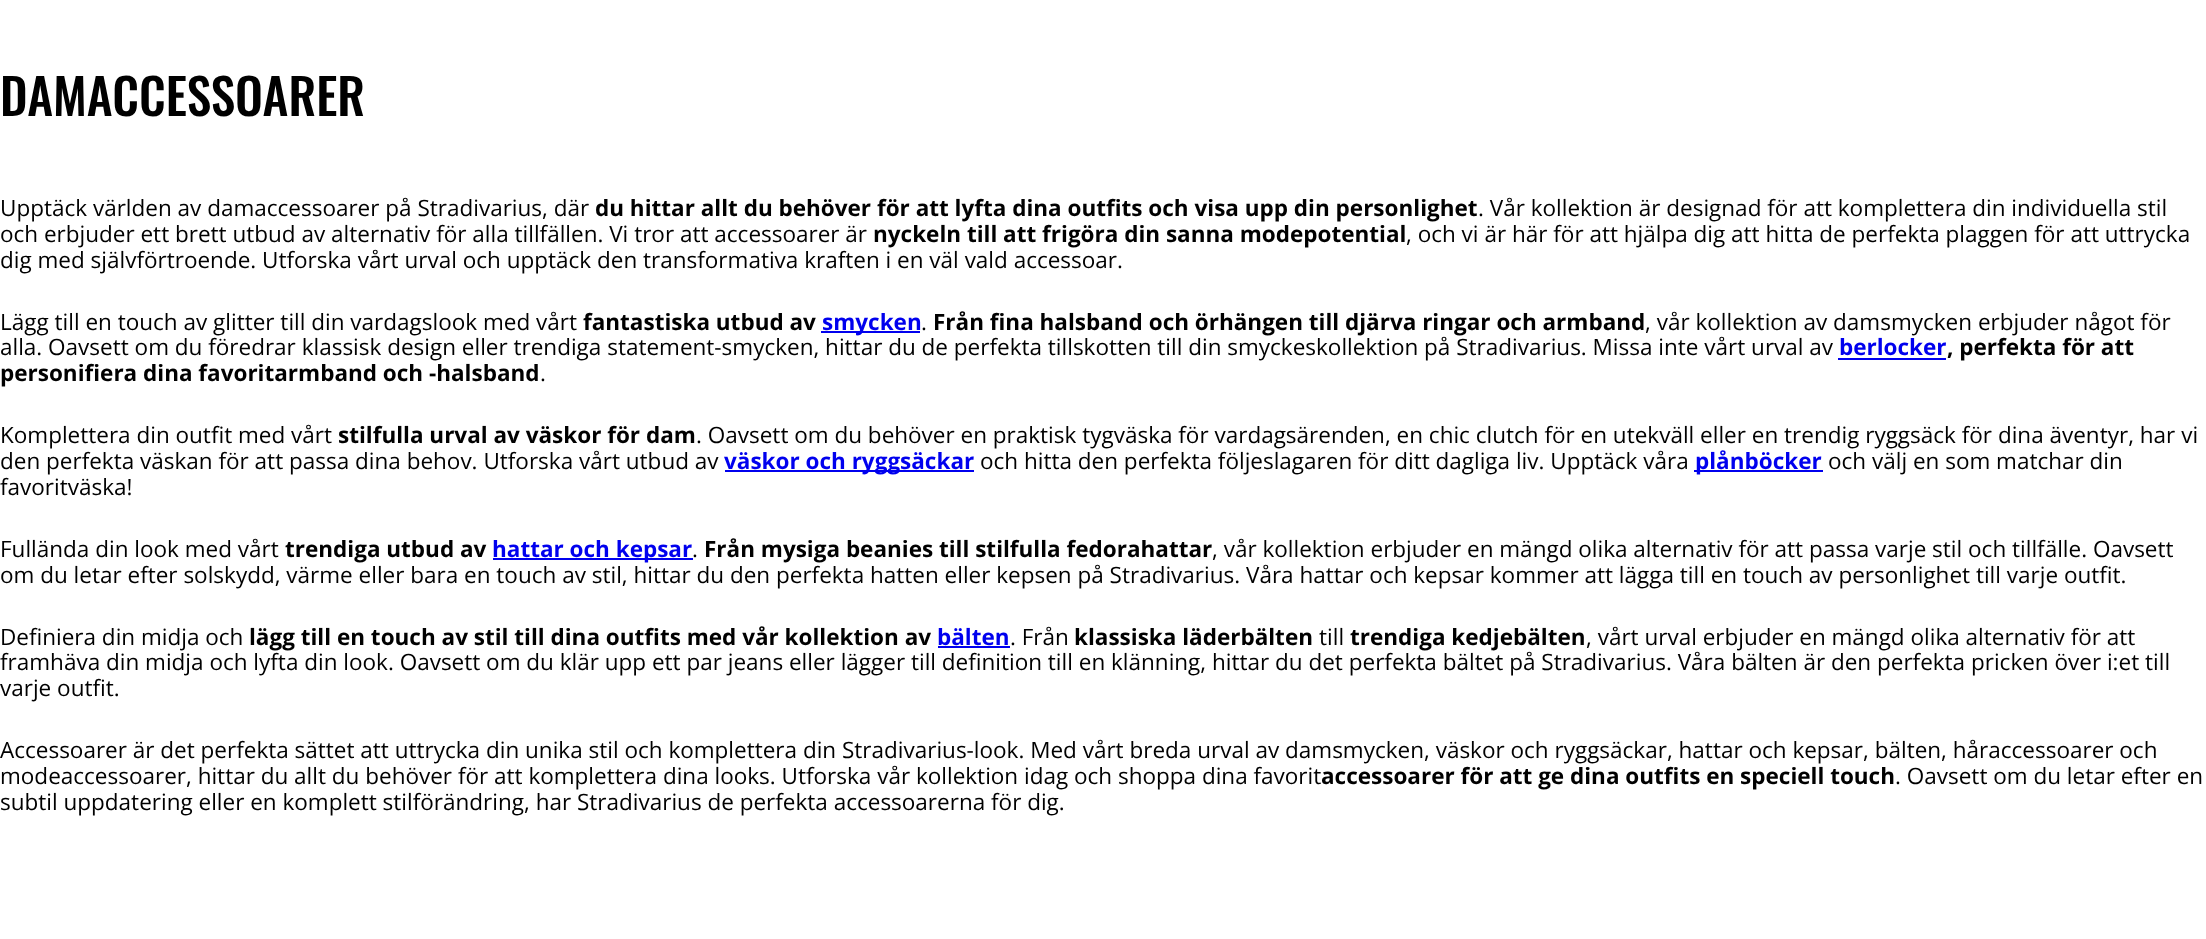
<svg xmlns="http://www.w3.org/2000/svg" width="2206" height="939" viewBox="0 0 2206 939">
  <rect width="100%" height="100%" fill="#fff"/>
  <path d="M821 331h99v2H821z" fill="#00e"/>
  <path d="M1838 358h108v2H1838z" fill="#00e"/>
  <path d="M725 470h249v2H725z" fill="#00e"/>
  <path d="M1694 470h129v2H1694z" fill="#00e"/>
  <path d="M493 558h200v2H493z" fill="#00e"/>
  <path d="M938 646h72v2H938z" fill="#00e"/>
  <text x="0" y="116" font-family="Oswald" font-size="49.5" font-weight="500" fill="#000">DAMACCESSOARER</text>
  <text x="0" y="216" font-family="Open Sans" font-size="22.5" fill="#000">Upptäck världen av damaccessoarer på Stradivarius, där</text>
  <text x="595" y="216" font-family="Open Sans" font-size="22.5" font-weight="bold" fill="#000">du hittar allt du behöver för att lyfta dina outfits och visa upp din personlighet</text>
  <g font-family="Open Sans" font-size="22.5" fill="#000">
    <text x="1478" y="216">. Vår kollektion är designad för att komplettera din individuella stil</text>
    <text x="0" y="242">och erbjuder ett brett utbud av alternativ för alla tillfällen. Vi tror att accessoarer är</text>
  </g>
  <text x="873" y="242" font-family="Open Sans" font-size="22.5" font-weight="bold" fill="#000">nyckeln till att frigöra din sanna modepotential</text>
  <g font-family="Open Sans" font-size="22.5" fill="#000">
    <text x="1406" y="242">, och vi är här för att hjälpa dig att hitta de perfekta plaggen för att uttrycka</text>
    <text x="0" y="268">dig med självförtroende. Utforska vårt urval och upptäck den transformativa kraften i en väl vald accessoar.</text>
    <text x="0" y="330">Lägg till en touch av glitter till din vardagslook med vårt</text>
  </g>
  <text x="583" y="330" font-family="Open Sans" font-size="22.5" font-weight="bold" fill="#000">fantastiska utbud av</text>
  <text x="822" y="330" font-family="Open Sans" font-size="22.5" font-weight="bold" fill="#00e">smycken</text>
  <text x="921" y="330" font-family="Open Sans" font-size="22.5" fill="#000">.</text>
  <text x="933" y="330" font-family="Open Sans" font-size="22.5" font-weight="bold" fill="#000">Från fina halsband och örhängen till djärva ringar och armband</text>
  <g font-family="Open Sans" font-size="22.5" fill="#000">
    <text x="1645" y="330">, vår kollektion av damsmycken erbjuder något för</text>
    <text x="0" y="355">alla. Oavsett om du föredrar klassisk design eller trendiga statement-smycken, hittar du de perfekta tillskotten till din smyckeskollektion på Stradivarius. Missa inte vårt urval av</text>
  </g>
  <text x="1839" y="355" font-family="Open Sans" font-size="22.5" font-weight="bold" fill="#00e">berlocker</text>
  <g font-family="Open Sans" font-size="22.5" font-weight="bold" fill="#000">
    <text x="1947" y="355">, perfekta för att</text>
    <text x="0" y="381">personifiera dina favoritarmband och -halsband</text>
  </g>
  <g font-family="Open Sans" font-size="22.5" fill="#000">
    <text x="540" y="381">.</text>
    <text x="0" y="443">Komplettera din outfit med vårt</text>
  </g>
  <text x="338" y="443" font-family="Open Sans" font-size="22.5" font-weight="bold" fill="#000">stilfulla urval av väskor för dam</text>
  <g font-family="Open Sans" font-size="22.5" fill="#000">
    <text x="696" y="443">. Oavsett om du behöver en praktisk tygväska för vardagsärenden, en chic clutch för en utekväll eller en trendig ryggsäck för dina äventyr, har vi</text>
    <text x="0" y="469">den perfekta väskan för att passa dina behov. Utforska vårt utbud av</text>
  </g>
  <text x="724" y="469" font-family="Open Sans" font-size="22.5" font-weight="bold" fill="#00e">väskor och ryggsäckar</text>
  <text x="980" y="469" font-family="Open Sans" font-size="22.5" fill="#000">och hitta den perfekta följeslagaren för ditt dagliga liv. Upptäck våra</text>
  <text x="1695" y="469" font-family="Open Sans" font-size="22.5" font-weight="bold" fill="#00e">plånböcker</text>
  <g font-family="Open Sans" font-size="22.5" fill="#000">
    <text x="1828" y="469">och välj en som matchar din</text>
    <text x="0" y="495">favoritväska!</text>
    <text x="0" y="557">Fullända din look med vårt</text>
  </g>
  <text x="285" y="557" font-family="Open Sans" font-size="22.5" font-weight="bold" fill="#000">trendiga utbud av</text>
  <text x="492" y="557" font-family="Open Sans" font-size="22.5" font-weight="bold" fill="#00e">hattar och kepsar</text>
  <text x="692" y="557" font-family="Open Sans" font-size="22.5" fill="#000">.</text>
  <text x="704" y="557" font-family="Open Sans" font-size="22.5" font-weight="bold" fill="#000">Från mysiga beanies till stilfulla fedorahattar</text>
  <g font-family="Open Sans" font-size="22.5" fill="#000">
    <text x="1212" y="557">, vår kollektion erbjuder en mängd olika alternativ för att passa varje stil och tillfälle. Oavsett</text>
    <text x="0" y="583">om du letar efter solskydd, värme eller bara en touch av stil, hittar du den perfekta hatten eller kepsen på Stradivarius. Våra hattar och kepsar kommer att lägga till en touch av personlighet till varje outfit.</text>
    <text x="0" y="645">Definiera din midja och</text>
  </g>
  <text x="249" y="645" font-family="Open Sans" font-size="22.5" font-weight="bold" fill="#000">lägg till en touch av stil till dina outfits med vår kollektion av</text>
  <text x="937" y="645" font-family="Open Sans" font-size="22.5" font-weight="bold" fill="#00e">bälten</text>
  <text x="1010" y="645" font-family="Open Sans" font-size="22.5" fill="#000">. Från</text>
  <text x="1074" y="645" font-family="Open Sans" font-size="22.5" font-weight="bold" fill="#000">klassiska läderbälten</text>
  <text x="1319" y="645" font-family="Open Sans" font-size="22.5" fill="#000">till</text>
  <text x="1350" y="645" font-family="Open Sans" font-size="22.5" font-weight="bold" fill="#000">trendiga kedjebälten</text>
  <g font-family="Open Sans" font-size="22.5" fill="#000">
    <text x="1586" y="645">, vårt urval erbjuder en mängd olika alternativ för att</text>
    <text x="0" y="670">framhäva din midja och lyfta din look. Oavsett om du klär upp ett par jeans eller lägger till definition till en klänning, hittar du det perfekta bältet på Stradivarius. Våra bälten är den perfekta pricken över i:et till</text>
    <text x="0" y="696">varje outfit.</text>
    <text x="0" y="758">Accessoarer är det perfekta sättet att uttrycka din unika stil och komplettera din Stradivarius-look. Med vårt breda urval av damsmycken, väskor och ryggsäckar, hattar och kepsar, bälten, håraccessoarer och</text>
    <text x="0" y="784">modeaccessoarer, hittar du allt du behöver för att komplettera dina looks. Utforska vår kollektion idag och shoppa dina favorit</text>
  </g>
  <text x="1321" y="784" font-family="Open Sans" font-size="22.5" font-weight="bold" fill="#000">accessoarer för att ge dina outfits en speciell touch</text>
  <g font-family="Open Sans" font-size="22.5" fill="#000">
    <text x="1895" y="784">. Oavsett om du letar efter en</text>
    <text x="0" y="810">subtil uppdatering eller en komplett stilförändring, har Stradivarius de perfekta accessoarerna för dig.</text>
  </g>
</svg>
